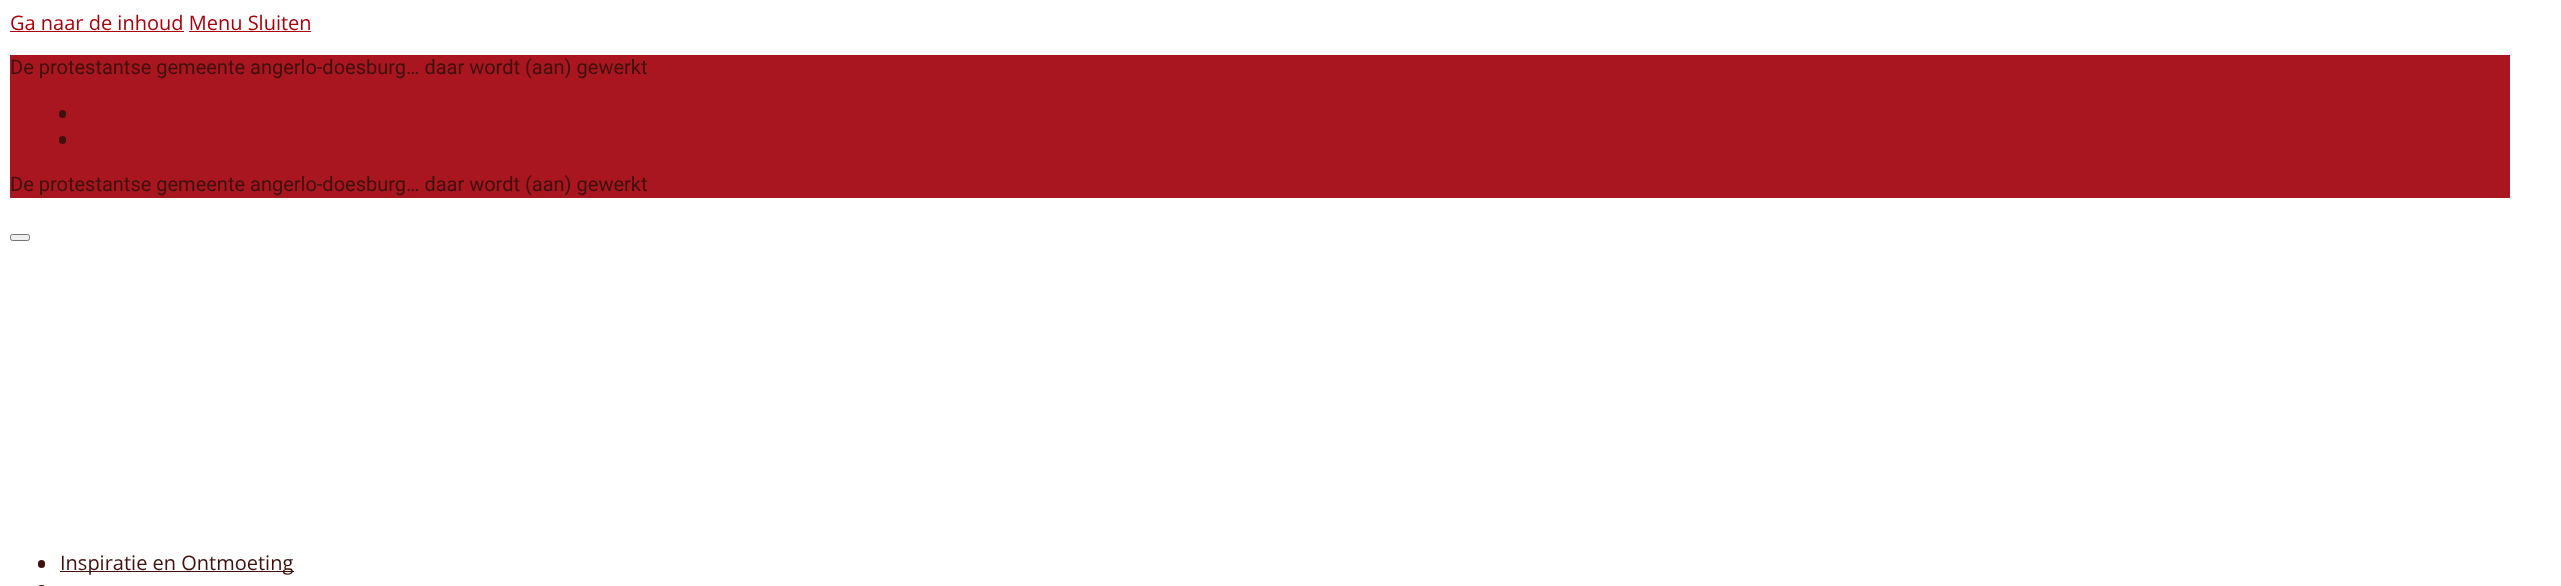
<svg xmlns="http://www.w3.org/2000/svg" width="2561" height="586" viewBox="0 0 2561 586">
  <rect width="100%" height="100%" fill="#fff"/>
  <path d="M10 31h174v1H10z" fill="#aa000b"/>
  <path d="M189 31h122v1H189z" fill="#aa000b"/>
  <path d="M10 55h2500v143H10z" fill="#aa1620"/>
  <rect x="59" y="110" width="7" height="8" rx="3.5" fill="#3f110e"/>
  <rect x="59" y="136" width="7" height="8" rx="3.5" fill="#3f110e"/>
  <rect x="10.5" y="234.5" width="19" height="6" rx="2" fill="#efefef" stroke="#767676"/>
  <rect x="38" y="560" width="7" height="8" rx="3.5" fill="#3f110e"/>
  <path d="M60 571h234v1H60z" fill="#3f110e"/>
  <rect x="38" y="585" width="7" height="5" rx="3.5" fill="#3f110e"/>
  <text x="10" y="30" font-family="Open Sans" font-size="20" fill="#aa000b">Ga naar de inhoud Menu Sluiten</text>
  <g font-family="Roboto" font-size="20" fill="#3f110e">
    <text x="10" y="74">De protestantse gemeente angerlo-doesburg… daar wordt (aan) gewerkt</text>
    <text x="10" y="191">De protestantse gemeente angerlo-doesburg… daar wordt (aan) gewerkt</text>
  </g>
  <text x="60" y="570" font-family="Open Sans" font-size="20" fill="#3f110e">Inspiratie en Ontmoeting</text>
</svg>
